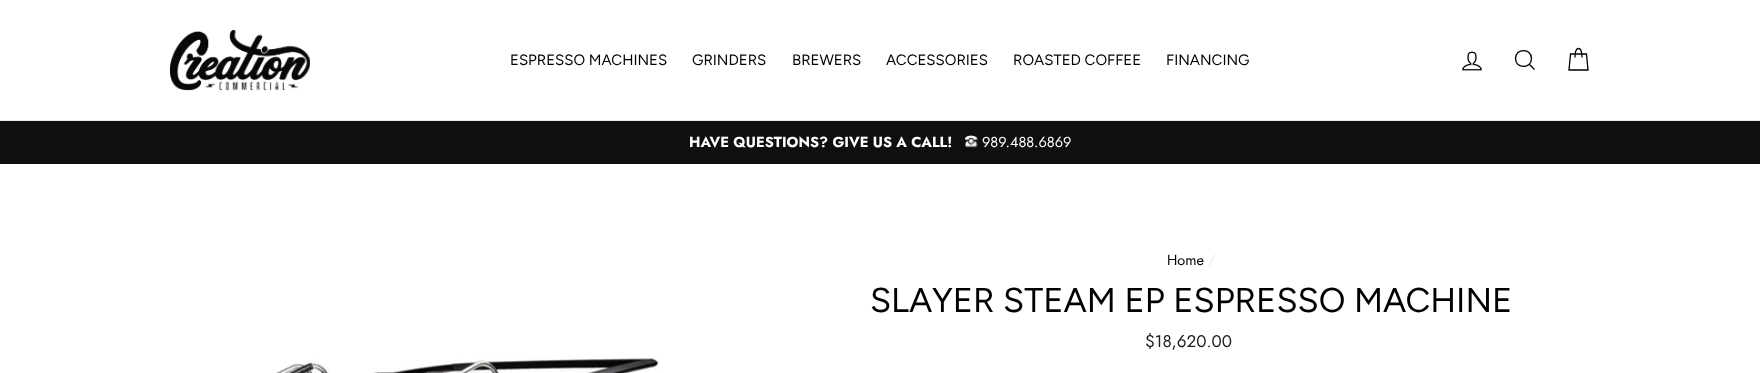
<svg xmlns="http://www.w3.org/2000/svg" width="1760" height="373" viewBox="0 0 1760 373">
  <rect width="100%" height="100%" fill="#fff"/>
  <path d="M0 120h1760v1H0z" fill="#e8e8e1"/>
  <image x="170" y="30" width="140" height="61" href="img/1.png"/>
  <image x="1462" y="51" width="20" height="20" href="img/2.png"/>
  <path d="M1531.5 58.5C1531.5 69 1515.5 69 1515.5 58.5C1515.5 48 1531.5 48 1531.5 58.5ZM1534.5 69.5L1529.5 64.5" fill="none" stroke="#000" stroke-width="1.3"/>
  <path d="M1575 57.5C1575 45.5 1582 45.5 1582 57.5M1570.5 54H1586.5L1588 70H1569Z" fill="none" stroke="#000" stroke-width="1.3"/>
  <path d="M0 121h1760v43H0z" fill="#0f0f0f"/>
  <image x="965" y="135" width="13" height="13" href="img/3.png"/>
  <image x="275" y="357" width="384" height="16" href="img/4.png"/>
  <g font-family="Figtree" font-size="15" fill="#000">
    <text x="510" y="65">ESPRESSO MACHINES</text>
    <text x="692" y="65">GRINDERS</text>
    <text x="792" y="65">BREWERS</text>
    <text x="886" y="65">ACCESSORIES</text>
    <text x="1013" y="65">ROASTED COFFEE</text>
    <text x="1166" y="65">FINANCING</text>
  </g>
  <text x="689" y="147" font-family="Jost" font-size="14.5" font-weight="bold" fill="#fff">HAVE QUESTIONS? GIVE US A CALL!</text>
  <text x="982" y="147" font-family="Jost" font-size="14.5" fill="#fff">989.488.6869</text>
  <text x="1167" y="265" font-family="Jost" font-size="14.5" fill="#000">Home</text>
  <text x="1208" y="265" font-family="Jost" font-size="14.5" fill="#e8e8e1">/</text>
  <text x="870" y="312" font-family="Figtree" font-size="34.4" fill="#000">SLAYER STEAM EP ESPRESSO MACHINE</text>
  <text x="1145" y="347" font-family="Jost" font-size="17" fill="#1c1d1d">$18,620.00</text>
</svg>
